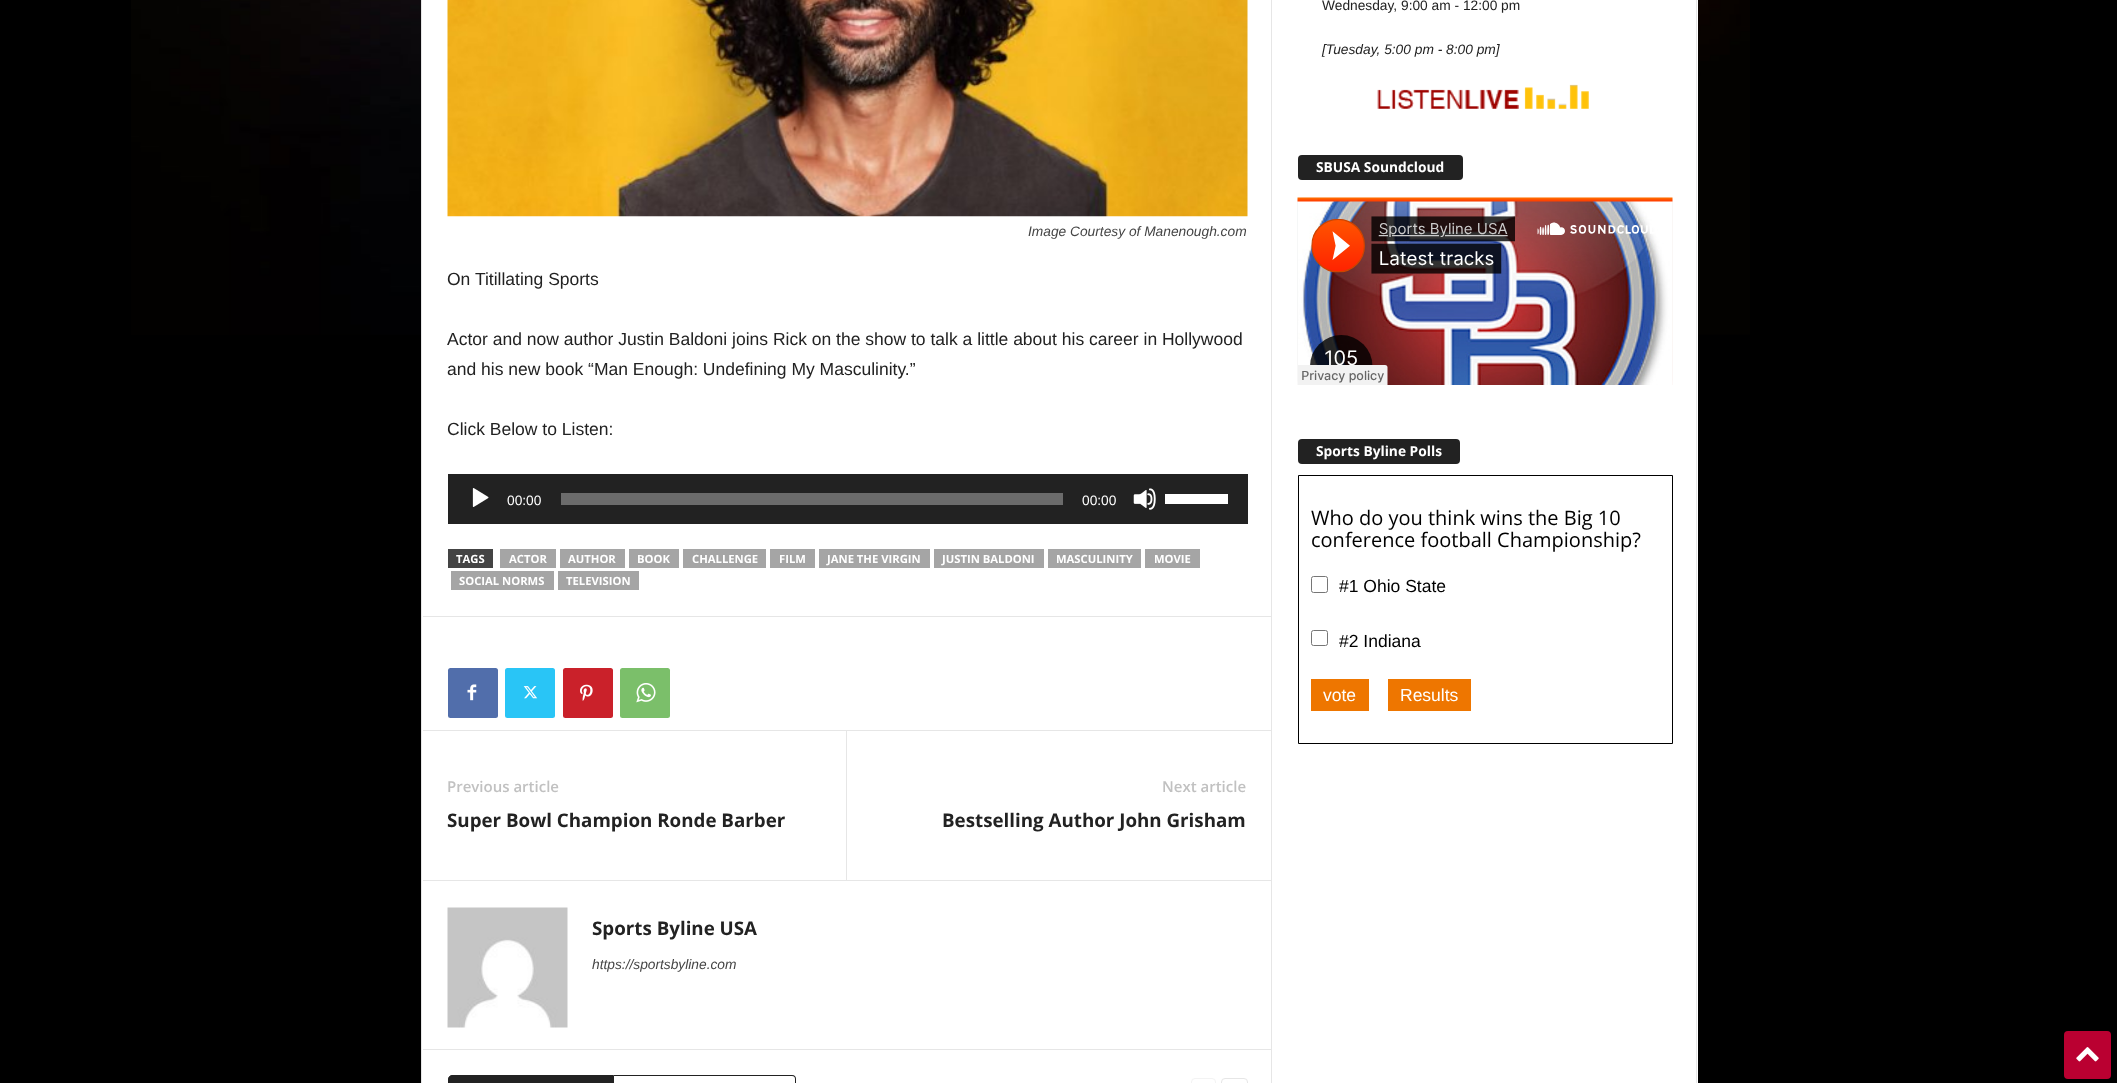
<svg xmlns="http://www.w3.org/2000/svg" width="2117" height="1083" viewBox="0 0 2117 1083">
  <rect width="100%" height="100%" fill="#000"/>
  <image x="131" y="0" width="1619" height="335" href="img/1.png"/>
  <path d="M422 0h1276v1083H422z" fill="#fff"/>
  <path d="M421 0h1v1083H421z" fill="#e6e6e6"/>
  <image x="447" y="0" width="801" height="217" href="img/2.png"/>
  <path d="M448 474h800v50H448z" fill="#222"/>
  <image x="472" y="488" width="17" height="19" href="img/3.png"/>
  <path d="M561 493h502v12H561z" fill="#6b6b6b"/>
  <image x="1133" y="488" width="23" height="22" href="img/4.png"/>
  <path d="M1165 494h63v10H1165z" fill="#fff"/>
  <path d="M448 549h45v19H448z" fill="#444"/>
  <path d="M500 549h56v19H500z" fill="#a5a5a5"/>
  <path d="M560 549h65v19H560z" fill="#a5a5a5"/>
  <path d="M629 549h50v19H629z" fill="#a5a5a5"/>
  <path d="M683 549h83v19H683z" fill="#a5a5a5"/>
  <path d="M770 549h45v19H770z" fill="#a5a5a5"/>
  <path d="M819 549h111v19H819z" fill="#a5a5a5"/>
  <path d="M934 549h110v19H934z" fill="#a5a5a5"/>
  <path d="M1048 549h93v19H1048z" fill="#a5a5a5"/>
  <path d="M1145 549h55v19H1145z" fill="#a5a5a5"/>
  <path d="M451 571h103v19H451z" fill="#a5a5a5"/>
  <path d="M558 571h81v19H558z" fill="#a5a5a5"/>
  <path d="M423 616h848v1H423z" fill="#e6e6e6"/>
  <rect x="448" y="668" width="50" height="50" rx="2.5" fill="#516eab"/>
  <image x="467" y="684" width="10" height="17" href="img/5.png"/>
  <rect x="505" y="668" width="50" height="50" rx="2.5" fill="#29c5f6"/>
  <image x="523" y="686" width="15" height="13" href="img/6.png"/>
  <rect x="563" y="668" width="50" height="50" rx="2.5" fill="#ca212a"/>
  <image x="580" y="684" width="13" height="17" href="img/7.png"/>
  <rect x="620" y="668" width="50" height="50" rx="2.5" fill="#7bbf6a"/>
  <image x="636" y="683" width="20" height="20" href="img/8.png"/>
  <path d="M423 730h848v1H423z" fill="#e6e6e6"/>
  <path d="M846 731h1v149H846z" fill="#e6e6e6"/>
  <path d="M423 880h848v1H423z" fill="#e6e6e6"/>
  <image x="447" y="907" width="121" height="121" href="img/9.png"/>
  <path d="M423 1049h848v1H423z" fill="#e6e6e6"/>
  <path d="M452 1075.5H613.5V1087.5H452C450 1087.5 448.5 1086 448.5 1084V1079C448.5 1077 450 1075.5 452 1075.5Z" fill="#222" stroke="#222"/>
  <path d="M614 1075H792C795 1075 796 1077 796 1079V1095C796 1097 795 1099 792 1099H614ZM614 1076H792C794 1076 795 1077 795 1079V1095C795 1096 794 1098 792 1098H614Z" fill="#222" fill-rule="evenodd"/>
  <rect x="1191.5" y="1078.5" width="24" height="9" rx="3.5" fill="none" stroke="#f3f3f3"/>
  <rect x="1221.5" y="1078.5" width="26" height="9" rx="3.5" fill="none" stroke="#e6e6e6"/>
  <path d="M1271 0h1v1083H1271z" fill="#e6e6e6"/>
  <image x="1377" y="84" width="212" height="25" href="img/10.png"/>
  <rect x="1298" y="155" width="165" height="25" rx="4" fill="#222"/>
  <image x="1297" y="197" width="376" height="188" href="img/11.png"/>
  <rect x="1298" y="439" width="162" height="25" rx="4" fill="#222"/>
  <path d="M1298.5 475.5h374v268H1298.5z" fill="none" stroke="#000"/>
  <rect x="1311.5" y="576.5" width="16" height="16" rx="2" fill="none" stroke="#767676"/>
  <rect x="1311.5" y="630.5" width="16" height="15" rx="2" fill="none" stroke="#767676"/>
  <path d="M1311 679h58v32H1311z" fill="#ee7600"/>
  <path d="M1388 679h83v32H1388z" fill="#ee7600"/>
  <path d="M1696 0h1v1083H1696z" fill="#e6e6e6"/>
  <rect x="2064" y="1031" width="47" height="48" rx="4" fill="#ba0031"/>
  <image x="2076" y="1047" width="23" height="15" href="img/12.png"/>
  <text x="1028" y="236" font-family="Liberation Sans" font-size="13.75" font-style="italic" fill="#444">Image Courtesy of Manenough.com</text>
  <g font-family="Liberation Sans" font-size="17.5" fill="#222">
    <text x="447" y="285">On Titillating Sports</text>
    <text x="447" y="345">Actor and now author Justin Baldoni joins Rick on the show to talk a little about his career in Hollywood</text>
    <text x="447" y="375">and his new book “Man Enough: Undefining My Masculinity.”</text>
    <text x="447" y="435">Click Below to Listen:</text>
  </g>
  <g font-family="Liberation Sans" font-size="13.75" fill="#fff">
    <text x="507" y="505">00:00</text>
    <text x="1082" y="505">00:00</text>
  </g>
  <g font-family="Open Sans" font-size="11.25" font-weight="bold" fill="#fff">
    <text x="456" y="563">TAGS</text>
    <text x="509" y="563">ACTOR</text>
    <text x="568" y="563">AUTHOR</text>
    <text x="637" y="563">BOOK</text>
    <text x="692" y="563">CHALLENGE</text>
    <text x="779" y="563">FILM</text>
    <text x="827" y="563">JANE THE VIRGIN</text>
    <text x="942" y="563">JUSTIN BALDONI</text>
    <text x="1056" y="563">MASCULINITY</text>
    <text x="1154" y="563">MOVIE</text>
    <text x="459" y="585">SOCIAL NORMS</text>
    <text x="566" y="585">TELEVISION</text>
  </g>
  <text x="447" y="792" font-family="Open Sans" font-size="15" font-weight="600" fill="#c1c1c1">Previous article</text>
  <text x="447" y="827" font-family="Open Sans" font-size="18.75" font-weight="bold" fill="#222">Super Bowl Champion Ronde Barber</text>
  <text x="1162" y="792" font-family="Open Sans" font-size="15" font-weight="600" fill="#c1c1c1">Next article</text>
  <g font-family="Open Sans" font-size="18.75" font-weight="bold" fill="#222">
    <text x="942" y="827">Bestselling Author John Grisham</text>
    <text x="592" y="935">Sports Byline USA</text>
  </g>
  <text x="592" y="969" font-family="Liberation Sans" font-size="13.75" font-style="italic" fill="#444">https://sportsbyline.com</text>
  <text x="1322" y="10" font-family="Liberation Sans" font-size="13.75" fill="#222">Wednesday, 9:00 am - 12:00 pm</text>
  <text x="1322" y="54" font-family="Liberation Sans" font-size="13.75" font-style="italic" fill="#222">[Tuesday, 5:00 pm - 8:00 pm]</text>
  <g font-family="Open Sans" font-size="13.75" font-weight="bold" fill="#fff">
    <text x="1316" y="172">SBUSA Soundcloud</text>
    <text x="1316" y="456">Sports Byline Polls</text>
  </g>
  <g font-family="Open Sans" font-size="20" fill="#000">
    <text x="1311" y="525">Who do you think wins the Big 10</text>
    <text x="1311" y="547">conference football Championship?</text>
  </g>
  <g font-family="Liberation Sans" font-size="17.5" fill="#000">
    <text x="1339" y="592">#1 Ohio State</text>
    <text x="1339" y="647">#2 Indiana</text>
  </g>
  <g font-family="Liberation Sans" font-size="17.5" fill="#fff">
    <text x="1323" y="701">vote</text>
    <text x="1400" y="701">Results</text>
  </g>
</svg>
